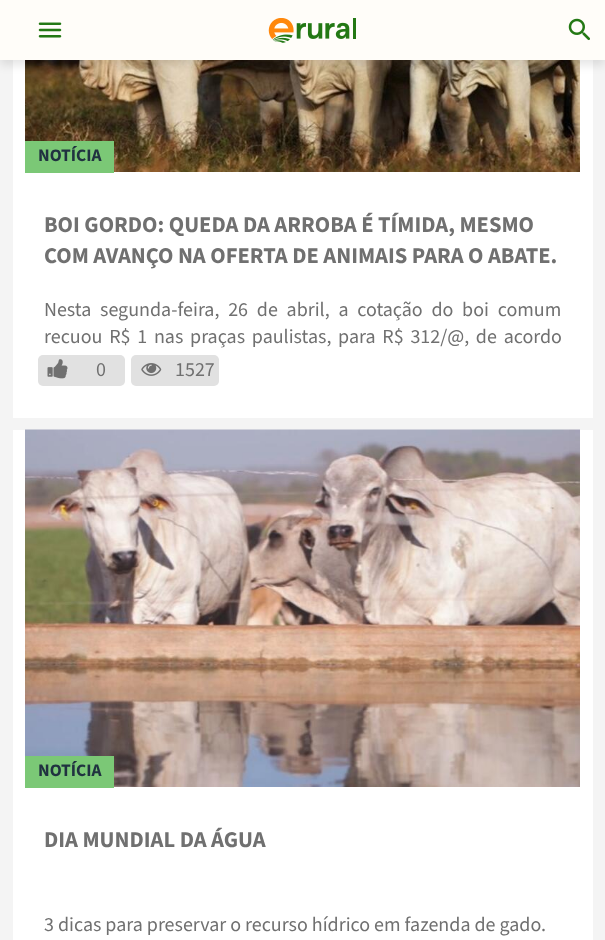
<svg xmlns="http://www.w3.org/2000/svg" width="605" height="940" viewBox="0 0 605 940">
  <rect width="100%" height="100%" fill="#f4f4f4"/>
  <path d="M13 60h580v358H13z" fill="#fff"/>
  <image x="25" y="60" width="555" height="112" href="img/4.png"/>
  <path d="M0 5h605v60H0z" fill="#0000001a" filter="blur(5px)"/>
  <path d="M0 0h605v60H0z" fill="#fffdf9"/>
  <image x="38" y="22" width="24" height="16" href="img/1.png"/>
  <image x="268" y="18" width="88" height="25" href="img/2.png"/>
  <image x="568" y="18" width="22" height="23" href="img/3.png"/>
  <path d="M25 141h89v32H25z" fill="#7bc876"/>
  <rect x="38" y="355" width="87" height="31" rx="5" fill="#e1e1e1"/>
  <image x="47" y="359" width="21" height="20" href="img/5.png"/>
  <rect x="131" y="355" width="88" height="31" rx="5" fill="#e1e1e1"/>
  <image x="141" y="363" width="21" height="13" href="img/6.png"/>
  <path d="M13 430h580v510H13z" fill="#fff"/>
  <image x="25" y="429" width="555" height="358" href="img/7.png"/>
  <path d="M25 756h89v32H25z" fill="#7bc876"/>
  <text x="38" y="161" font-family="'Source Sans 3'" font-size="17.5" font-weight="bold" fill="#203240">NOTÍCIA</text>
  <g font-family="'Source Sans 3'" font-size="22.5" font-weight="bold" fill="#707070">
    <text x="44" y="232">BOI GORDO: QUEDA DA ARROBA É TÍMIDA, MESMO</text>
    <text x="44" y="263">COM AVANÇO NA OFERTA DE ANIMAIS PARA O ABATE.</text>
  </g>
  <g font-family="'Source Sans 3'" font-size="20" fill="#707070">
    <text x="44" y="316" word-spacing="4.75">Nesta segunda-feira, 26 de abril, a cotação do boi comum</text>
    <text x="44" y="343" word-spacing="2.75">recuou R$ 1 nas praças paulistas, para R$ 312/@, de acordo</text>
    <text x="96" y="376">0</text>
    <text x="175" y="376">1527</text>
  </g>
  <text x="38" y="776" font-family="'Source Sans 3'" font-size="17.5" font-weight="bold" fill="#203240">NOTÍCIA</text>
  <text x="44" y="847" font-family="'Source Sans 3'" font-size="22.5" font-weight="bold" fill="#707070">DIA MUNDIAL DA ÁGUA</text>
  <text x="44" y="931" font-family="'Source Sans 3'" font-size="20" fill="#707070">3 dicas para preservar o recurso hídrico em fazenda de gado.</text>
</svg>
